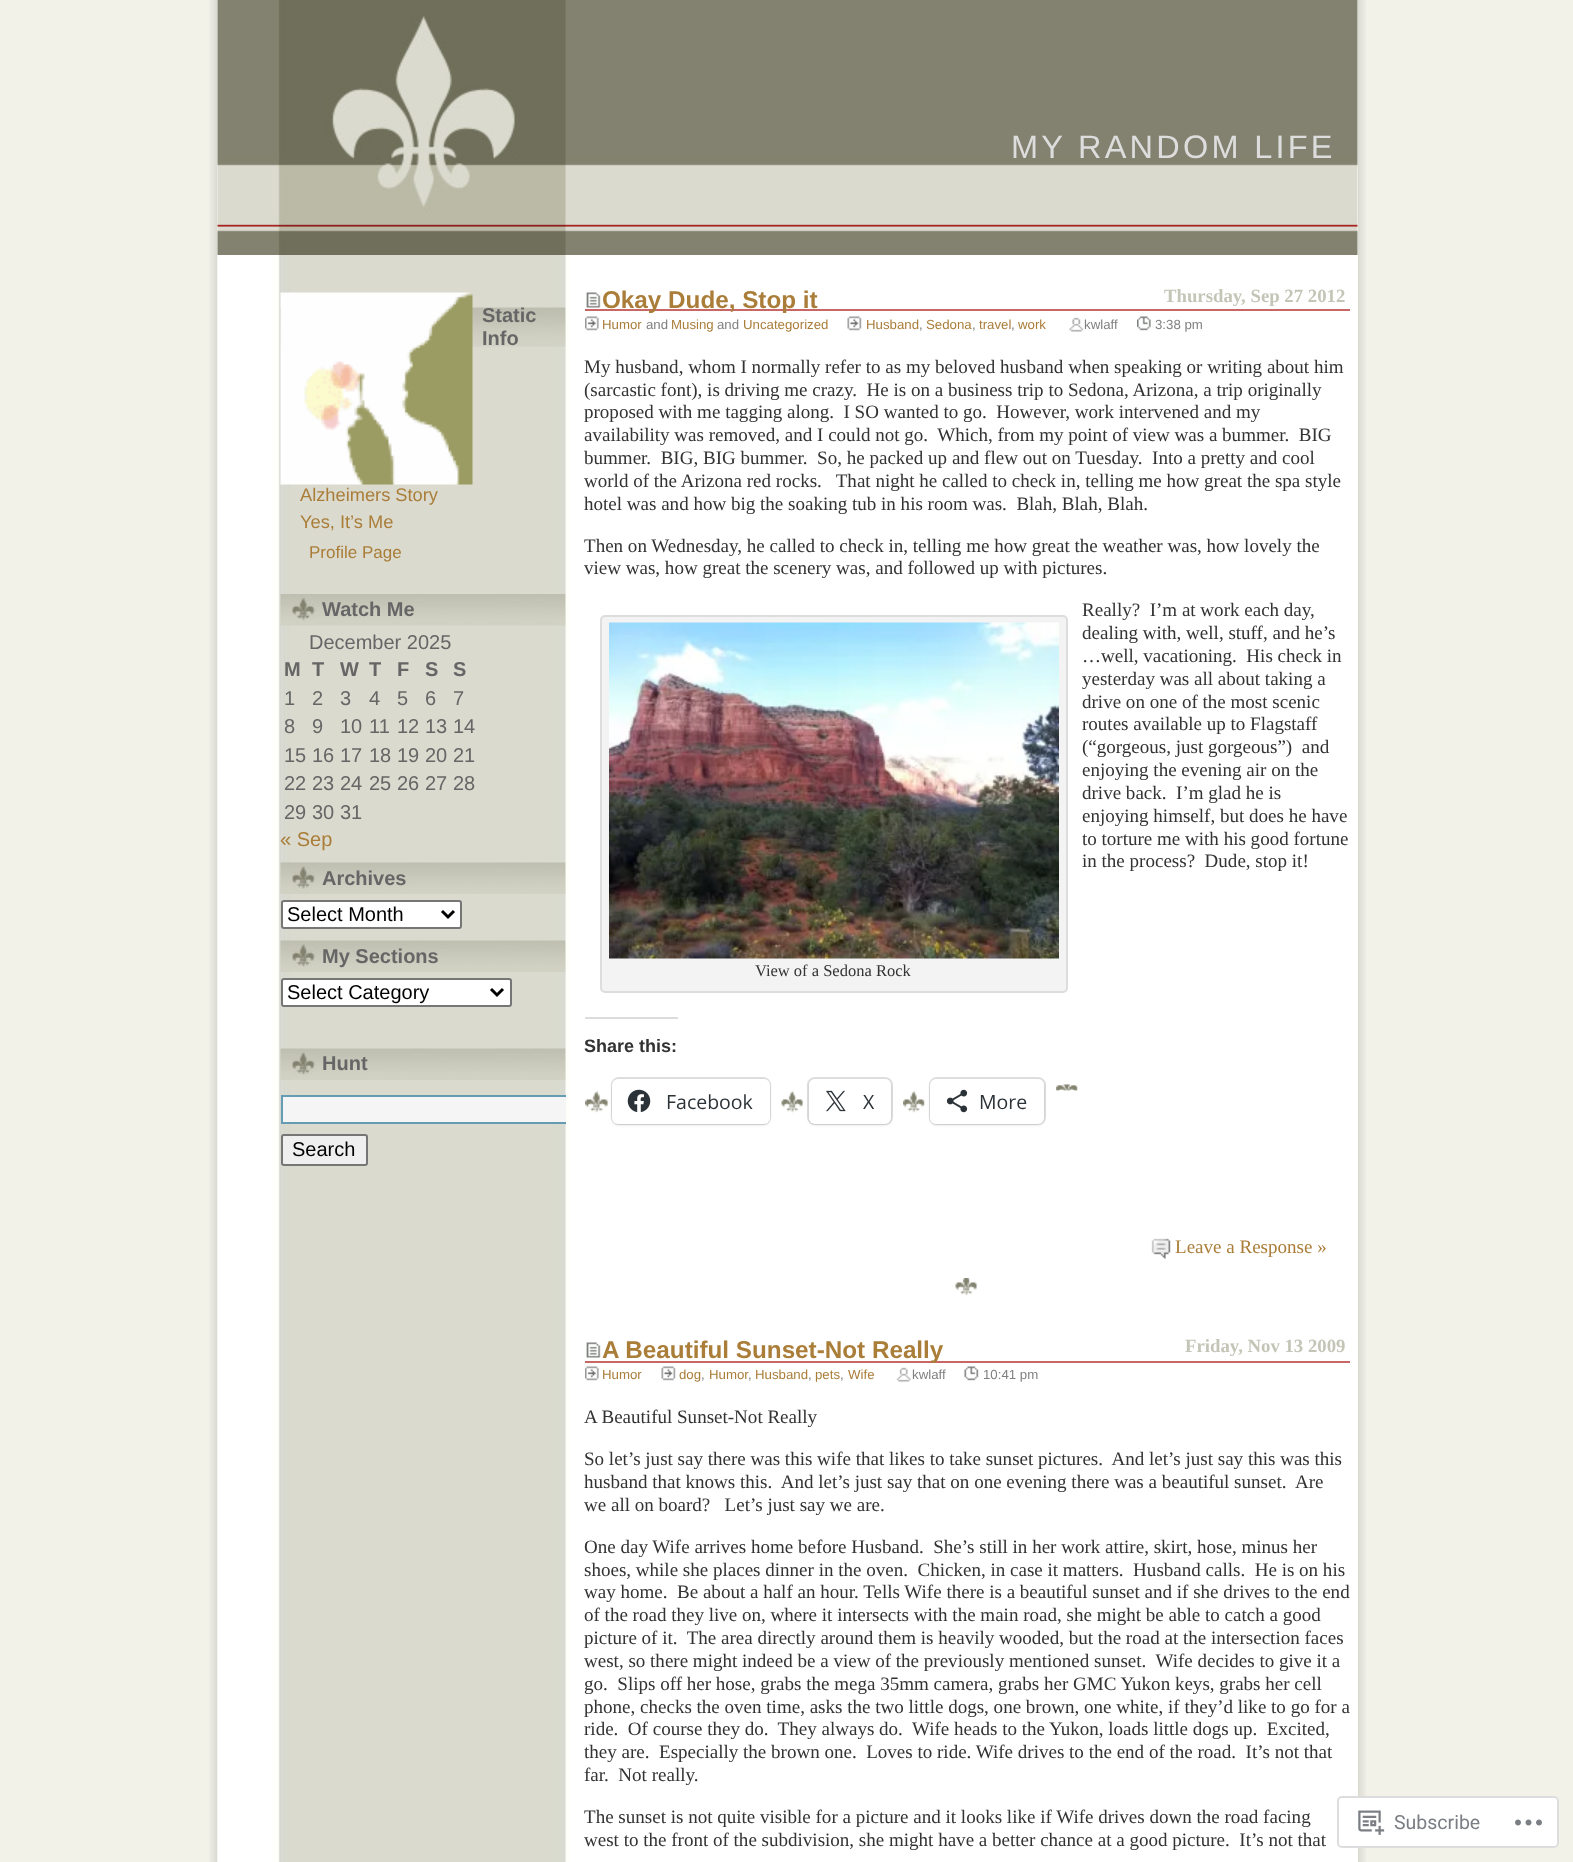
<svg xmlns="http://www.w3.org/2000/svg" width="1573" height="1862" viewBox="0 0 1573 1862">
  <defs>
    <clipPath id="clip1"><path d="M278 285h288v929H278z"/></clipPath>
  </defs>
  <rect width="100%" height="100%" fill="#f2f2e9"/>
  <image x="209" y="0" width="1157" height="1862" href="img/1.png"/>
  <path d="M1356 0h2v1862H1356z" fill="#fff"/>
  <image x="217" y="0" width="352" height="1862" href="img/2.png"/>
  <image x="217" y="0" width="1141" height="255" href="img/3.png"/>
  <image x="280" y="307" width="286" height="40" href="img/5.png"/>
  <image x="280" y="292" width="193" height="193" href="img/4.png"/>
  <image x="280" y="594" width="286" height="32" href="img/6.png"/>
  <image x="280" y="862" width="286" height="32" href="img/7.png"/>
  <rect x="282" y="901" width="179" height="27" rx="2" fill="#fff" stroke="#767676" stroke-width="2"/>
  <path d="M442 911L448 917L454 911" fill="none" stroke="#000" stroke-width="3"/>
  <image x="280" y="940" width="286" height="32" href="img/7.png"/>
  <rect x="282" y="979" width="229" height="27" rx="2" fill="#fff" stroke="#767676" stroke-width="2"/>
  <path d="M491 989L497 995L503 989" fill="none" stroke="#000" stroke-width="3"/>
  <image x="280" y="1048" width="286" height="32" href="img/7.png"/>
  <path d="M283 1097h283v25H283z" fill="#f5f5f5"/>
  <g clip-path="url(#clip1)">
    <path d="M282 1096h289v27H282z" fill="none" stroke="#669bb4" stroke-width="2"/>
  </g>
  <rect x="282" y="1135" width="85" height="30" rx="2" fill="#efefef" stroke="#767676" stroke-width="2"/>
  <path d="M585 309h765v2H585z" fill="#c96666"/>
  <image x="586" y="292" width="15" height="16" href="img/8.png"/>
  <image x="585" y="316" width="14" height="15" href="img/9.png"/>
  <image x="847" y="316" width="15" height="15" href="img/10.png"/>
  <image x="1069" y="317" width="15" height="15" href="img/11.png"/>
  <image x="1137" y="316" width="14" height="15" href="img/12.png"/>
  <rect x="601" y="616" width="466" height="376" rx="4" fill="#f3f3f3" stroke="#ddd" stroke-width="2"/>
  <image x="609" y="622" width="450" height="337" href="img/13.png"/>
  <path d="M585 1017h93v2H585z" fill="#dcdcde"/>
  <image x="1056" y="1084" width="22" height="7" href="img/14.png"/>
  <image x="585" y="1090" width="24" height="23" href="img/15.png"/>
  <rect x="612" y="1078" width="158" height="46" rx="7" fill="none" stroke="#e0e0e0" stroke-width="2"/>
  <rect x="612" y="1080" width="158" height="45" rx="6" fill="#0000001f" filter="blur(1.5px)"/>
  <rect x="612" y="1079" width="158" height="45" rx="6" fill="#fff"/>
  <image x="627" y="1089" width="24" height="23" href="img/16.png"/>
  <image x="781" y="1090" width="23" height="23" href="img/17.png"/>
  <rect x="808" y="1078" width="84" height="46" rx="7" fill="none" stroke="#e0e0e0" stroke-width="2"/>
  <rect x="809" y="1080" width="82" height="45" rx="6" fill="#0000001f" filter="blur(1.5px)"/>
  <rect x="809" y="1079" width="82" height="45" rx="6" fill="#fff"/>
  <image x="826" y="1090" width="20" height="22" href="img/18.png"/>
  <image x="903" y="1090" width="22" height="23" href="img/19.png"/>
  <rect x="930" y="1078" width="115" height="46" rx="7" fill="none" stroke="#e0e0e0" stroke-width="2"/>
  <rect x="930" y="1080" width="114" height="45" rx="6" fill="#0000001f" filter="blur(1.5px)"/>
  <rect x="930" y="1079" width="114" height="45" rx="6" fill="#fff"/>
  <image x="946" y="1089" width="22" height="24" href="img/20.png"/>
  <image x="1151" y="1238" width="20" height="21" href="img/21.png"/>
  <image x="955" y="1278" width="23" height="18" href="img/22.png"/>
  <path d="M585 1361h765v2H585z" fill="#c96666"/>
  <image x="586" y="1342" width="15" height="16" href="img/8.png"/>
  <image x="585" y="1366" width="14" height="15" href="img/9.png"/>
  <image x="661" y="1366" width="15" height="15" href="img/23.png"/>
  <image x="896" y="1367" width="15" height="15" href="img/24.png"/>
  <image x="964" y="1366" width="15" height="15" href="img/25.png"/>
  <rect x="1337" y="1796" width="222" height="52" rx="5" fill="#fffffffa"/>
  <rect x="1338" y="1797" width="220" height="50" rx="4" fill="none" stroke="#dcdcdefa" stroke-width="2"/>
  <image x="1358" y="1810" width="27" height="25" href="img/26.png"/>
  <image x="1515" y="1819" width="27" height="7" href="img/27.png"/>
  <text x="1011" y="158" font-family="Liberation Sans" font-size="32.5" letter-spacing="3.25" fill="#ddd">MY RANDOM LIFE</text>
  <g font-family="Liberation Sans" font-size="20" font-weight="bold" fill="#666">
    <text x="482" y="322">Static</text>
    <text x="482" y="345">Info</text>
  </g>
  <g font-family="Liberation Sans" font-size="18.25" fill="#aa7d39">
    <text x="300" y="501">Alzheimers Story</text>
    <text x="300" y="528">Yes, It’s Me</text>
  </g>
  <text x="309" y="558" font-family="Liberation Sans" font-size="17" fill="#aa7d39">Profile Page</text>
  <text x="322" y="616" font-family="Liberation Sans" font-size="20" font-weight="bold" fill="#666">Watch Me</text>
  <text x="309" y="649" font-family="Liberation Sans" font-size="20" fill="#666">December 2025</text>
  <g font-family="Liberation Sans" font-size="20" font-weight="bold" fill="#666">
    <text x="284" y="676">M</text>
    <text x="312" y="676">T</text>
    <text x="340" y="676">W</text>
    <text x="369" y="676">T</text>
    <text x="397" y="676">F</text>
    <text x="425" y="676">S</text>
    <text x="453" y="676">S</text>
  </g>
  <g font-family="Liberation Sans" font-size="20" fill="#666">
    <text x="284" y="705">1</text>
    <text x="312" y="705">2</text>
    <text x="340" y="705">3</text>
    <text x="369" y="705">4</text>
    <text x="397" y="705">5</text>
    <text x="425" y="705">6</text>
    <text x="453" y="705">7</text>
    <text x="284" y="733">8</text>
    <text x="312" y="733">9</text>
    <text x="340" y="733">10</text>
    <text x="369" y="733">11</text>
    <text x="397" y="733">12</text>
    <text x="425" y="733">13</text>
    <text x="453" y="733">14</text>
    <text x="284" y="762">15</text>
    <text x="312" y="762">16</text>
    <text x="340" y="762">17</text>
    <text x="369" y="762">18</text>
    <text x="397" y="762">19</text>
    <text x="425" y="762">20</text>
    <text x="453" y="762">21</text>
    <text x="284" y="790">22</text>
    <text x="312" y="790">23</text>
    <text x="340" y="790">24</text>
    <text x="369" y="790">25</text>
    <text x="397" y="790">26</text>
    <text x="425" y="790">27</text>
    <text x="453" y="790">28</text>
    <text x="284" y="819">29</text>
    <text x="312" y="819">30</text>
    <text x="340" y="819">31</text>
  </g>
  <text x="280" y="846" font-family="Liberation Sans" font-size="20" fill="#aa7d39">« Sep</text>
  <text x="322" y="885" font-family="Liberation Sans" font-size="20" font-weight="bold" fill="#666">Archives</text>
  <text x="287" y="921" font-family="Liberation Sans" font-size="20" fill="#000">Select Month</text>
  <text x="322" y="963" font-family="Liberation Sans" font-size="20" font-weight="bold" fill="#666">My Sections</text>
  <text x="287" y="999" font-family="Liberation Sans" font-size="20" fill="#000">Select Category</text>
  <text x="322" y="1070" font-family="Liberation Sans" font-size="20" font-weight="bold" fill="#666">Hunt</text>
  <text x="292" y="1156" font-family="Liberation Sans" font-size="20" fill="#000">Search</text>
  <text x="602" y="308" font-family="Liberation Sans" font-size="24.25" font-weight="bold" fill="#aa7d39">Okay Dude, Stop it</text>
  <text x="1164" y="302" font-family="Liberation Serif" font-size="18.75" font-weight="bold" fill="#c4c5b7">Thursday, Sep 27 2012</text>
  <text x="602" y="329" font-family="Liberation Sans" font-size="13.25" fill="#aa7d39">Humor</text>
  <text x="646" y="329" font-family="Liberation Sans" font-size="13.25" fill="#808080">and</text>
  <text x="671" y="329" font-family="Liberation Sans" font-size="13.25" fill="#aa7d39">Musing</text>
  <text x="717" y="329" font-family="Liberation Sans" font-size="13.25" fill="#808080">and</text>
  <g font-family="Liberation Sans" font-size="13.25" fill="#aa7d39">
    <text x="743" y="329">Uncategorized</text>
    <text x="866" y="329">Husband</text>
  </g>
  <text x="919" y="329" font-family="Liberation Sans" font-size="13.25" fill="#808080">,</text>
  <text x="926" y="329" font-family="Liberation Sans" font-size="13.25" fill="#aa7d39">Sedona</text>
  <text x="972" y="329" font-family="Liberation Sans" font-size="13.25" fill="#808080">,</text>
  <text x="979" y="329" font-family="Liberation Sans" font-size="13.25" fill="#aa7d39">travel</text>
  <text x="1011" y="329" font-family="Liberation Sans" font-size="13.25" fill="#808080">,</text>
  <text x="1018" y="329" font-family="Liberation Sans" font-size="13.25" fill="#aa7d39">work</text>
  <g font-family="Liberation Sans" font-size="13.25" fill="#808080">
    <text x="1084" y="329">kwlaff</text>
    <text x="1155" y="329">3:38 pm</text>
  </g>
  <g font-family="Liberation Serif" font-size="19.05" fill="#333">
    <text x="584" y="373">My husband, whom I normally refer to as my beloved husband when speaking or writing about him</text>
    <text x="584" y="396" xml:space="preserve">(sarcastic font), is driving me crazy.  He is on a business trip to Sedona, Arizona, a trip originally</text>
    <text x="584" y="418" xml:space="preserve">proposed with me tagging along.  I SO wanted to go.  However, work intervened and my</text>
    <text x="584" y="441" xml:space="preserve">availability was removed, and I could not go.  Which, from my point of view was a bummer.  BIG</text>
    <text x="584" y="464" xml:space="preserve">bummer.  BIG, BIG bummer.  So, he packed up and flew out on Tuesday.  Into a pretty and cool</text>
    <text x="584" y="487" xml:space="preserve">world of the Arizona red rocks.   That night he called to check in, telling me how great the spa style</text>
    <text x="584" y="510" xml:space="preserve">hotel was and how big the soaking tub in his room was.  Blah, Blah, Blah.</text>
    <text x="584" y="552">Then on Wednesday, he called to check in, telling me how great the weather was, how lovely the</text>
    <text x="584" y="574">view was, how great the scenery was, and followed up with pictures.</text>
    <text x="1082" y="616" xml:space="preserve">Really?  I’m at work each day,</text>
    <text x="1082" y="639">dealing with, well, stuff, and he’s</text>
    <text x="1082" y="662" xml:space="preserve">…well, vacationing.  His check in</text>
    <text x="1082" y="685">yesterday was all about taking a</text>
    <text x="1082" y="708">drive on one of the most scenic</text>
    <text x="1082" y="730">routes available up to Flagstaff</text>
    <text x="1082" y="753" xml:space="preserve">(“gorgeous, just gorgeous”)  and</text>
    <text x="1082" y="776">enjoying the evening air on the</text>
    <text x="1082" y="799" xml:space="preserve">drive back.  I’m glad he is</text>
    <text x="1082" y="822">enjoying himself, but does he have</text>
    <text x="1082" y="845">to torture me with his good fortune</text>
    <text x="1082" y="867" xml:space="preserve">in the process?  Dude, stop it!</text>
  </g>
  <text x="755" y="976" font-family="Liberation Serif" font-size="16.5" fill="#333">View of a Sedona Rock</text>
  <text x="584" y="1052" font-family="Liberation Sans" font-size="18" font-weight="bold" fill="#333">Share this:</text>
  <g font-family="Open Sans" font-size="19.5" fill="#2c3338">
    <text x="666" y="1109">Facebook</text>
    <text x="863" y="1109">X</text>
    <text x="979" y="1109">More</text>
  </g>
  <text x="1175" y="1253" font-family="Liberation Serif" font-size="19.05" fill="#aa7d39">Leave a Response »</text>
  <text x="602" y="1358" font-family="Liberation Sans" font-size="24.25" font-weight="bold" fill="#aa7d39">A Beautiful Sunset-Not Really</text>
  <text x="1185" y="1352" font-family="Liberation Serif" font-size="18.75" font-weight="bold" fill="#c4c5b7">Friday, Nov 13 2009</text>
  <g font-family="Liberation Sans" font-size="13.25" fill="#aa7d39">
    <text x="602" y="1379">Humor</text>
    <text x="679" y="1379">dog</text>
  </g>
  <text x="701" y="1379" font-family="Liberation Sans" font-size="13.25" fill="#808080">,</text>
  <text x="709" y="1379" font-family="Liberation Sans" font-size="13.25" fill="#aa7d39">Humor</text>
  <text x="748" y="1379" font-family="Liberation Sans" font-size="13.25" fill="#808080">,</text>
  <text x="755" y="1379" font-family="Liberation Sans" font-size="13.25" fill="#aa7d39">Husband</text>
  <text x="808" y="1379" font-family="Liberation Sans" font-size="13.25" fill="#808080">,</text>
  <text x="815" y="1379" font-family="Liberation Sans" font-size="13.25" fill="#aa7d39">pets</text>
  <text x="840" y="1379" font-family="Liberation Sans" font-size="13.25" fill="#808080">,</text>
  <text x="848" y="1379" font-family="Liberation Sans" font-size="13.25" fill="#aa7d39">Wife</text>
  <g font-family="Liberation Sans" font-size="13.25" fill="#808080">
    <text x="912" y="1379">kwlaff</text>
    <text x="983" y="1379">10:41 pm</text>
  </g>
  <g font-family="Liberation Serif" font-size="19.05" fill="#333">
    <text x="584" y="1423">A Beautiful Sunset-Not Really</text>
    <text x="584" y="1465" xml:space="preserve">So let’s just say there was this wife that likes to take sunset pictures.  And let’s just say this was this</text>
    <text x="584" y="1488" xml:space="preserve">husband that knows this.  And let’s just say that on one evening there was a beautiful sunset.  Are</text>
    <text x="584" y="1511" xml:space="preserve">we all on board?   Let’s just say we are.</text>
    <text x="584" y="1553" xml:space="preserve">One day Wife arrives home before Husband.  She’s still in her work attire, skirt, hose, minus her</text>
    <text x="584" y="1576" xml:space="preserve">shoes, while she places dinner in the oven.  Chicken, in case it matters.  Husband calls.  He is on his</text>
    <text x="584" y="1598" xml:space="preserve">way home.  Be about a half an hour. Tells Wife there is a beautiful sunset and if she drives to the end</text>
    <text x="584" y="1621">of the road they live on, where it intersects with the main road, she might be able to catch a good</text>
    <text x="584" y="1644" xml:space="preserve">picture of it.  The area directly around them is heavily wooded, but the road at the intersection faces</text>
    <text x="584" y="1667" xml:space="preserve">west, so there might indeed be a view of the previously mentioned sunset.  Wife decides to give it a</text>
    <text x="584" y="1690" xml:space="preserve">go.  Slips off her hose, grabs the mega 35mm camera, grabs her GMC Yukon keys, grabs her cell</text>
    <text x="584" y="1713">phone, checks the oven time, asks the two little dogs, one brown, one white, if they’d like to go for a</text>
    <text x="584" y="1735" xml:space="preserve">ride.  Of course they do.  They always do.  Wife heads to the Yukon, loads little dogs up.  Excited,</text>
    <text x="584" y="1758" xml:space="preserve">they are.  Especially the brown one.  Loves to ride. Wife drives to the end of the road.  It’s not that</text>
    <text x="584" y="1781" xml:space="preserve">far.  Not really.</text>
    <text x="584" y="1823">The sunset is not quite visible for a picture and it looks like if Wife drives down the road facing</text>
    <text x="584" y="1846" xml:space="preserve">west to the front of the subdivision, she might have a better chance at a good picture.  It’s not that</text>
  </g>
  <text x="1394" y="1829" font-family="Roboto" font-size="19.5" fill="#7a7e84">Subscribe</text>
</svg>
